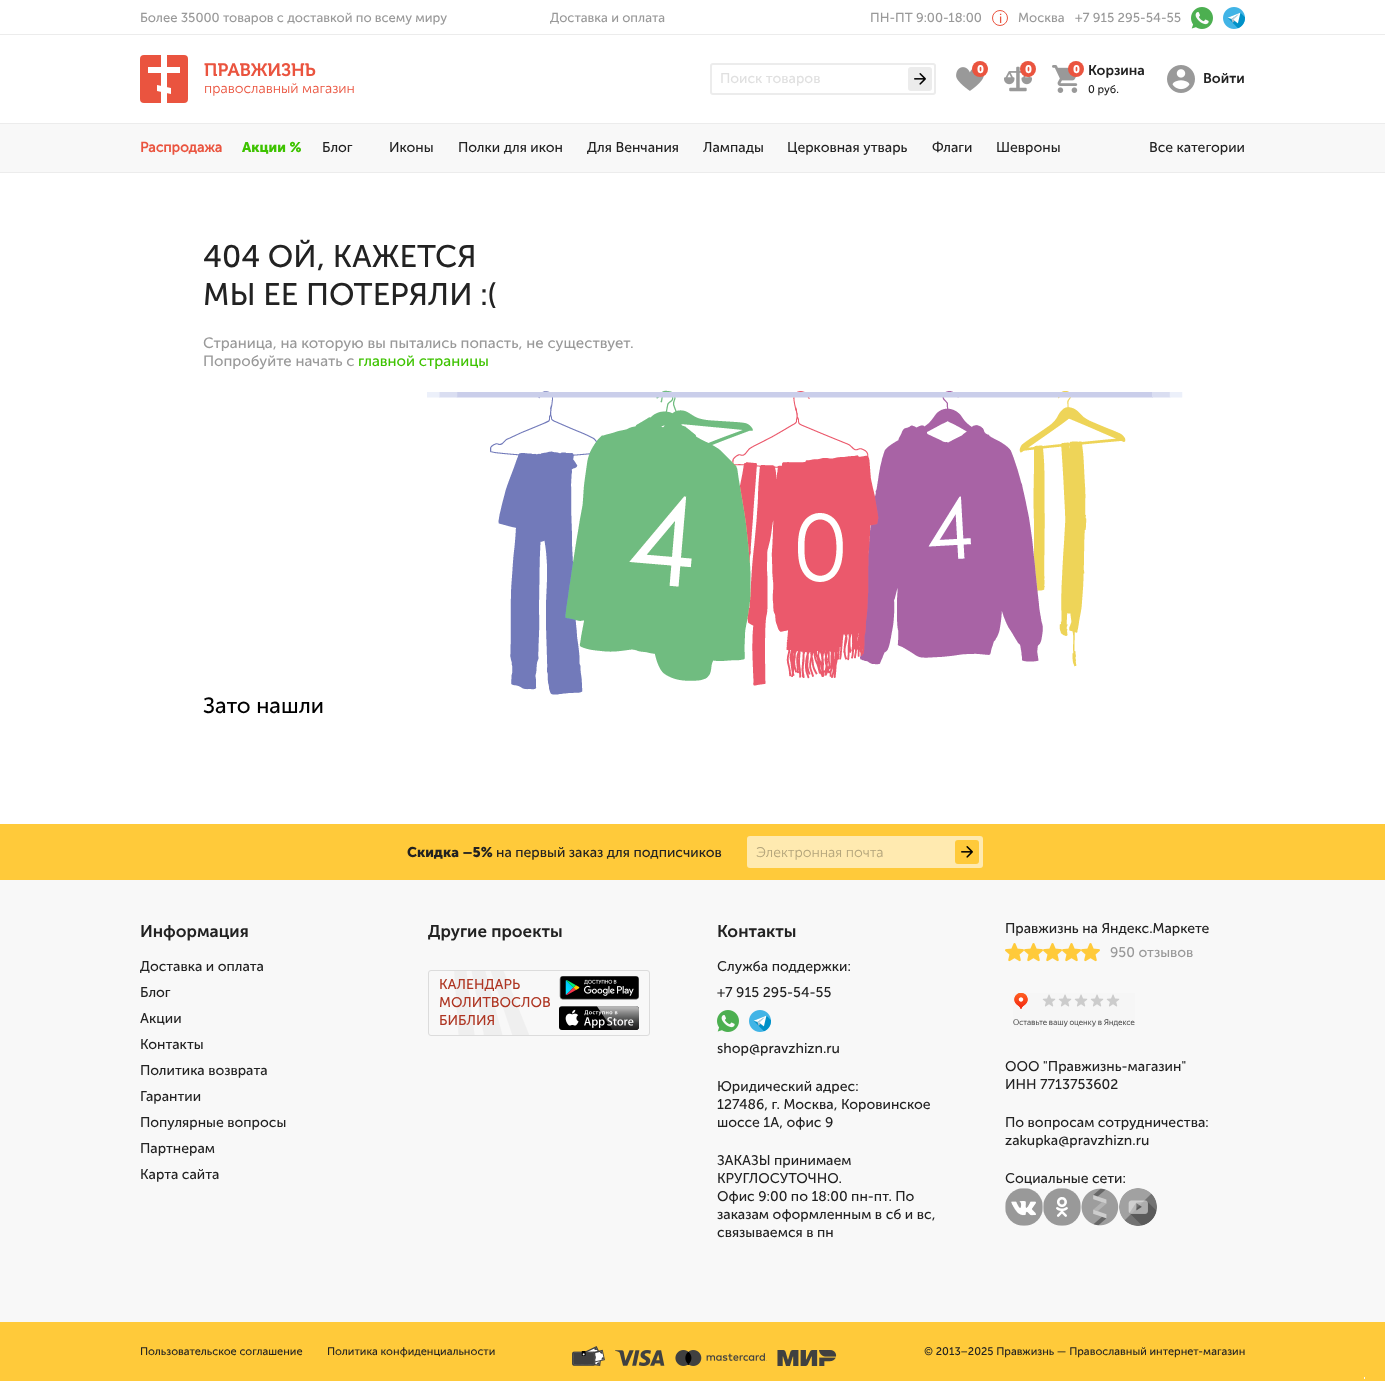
<svg xmlns="http://www.w3.org/2000/svg" width="1385" height="1399" viewBox="0 0 1385 1399">
  <rect width="100%" height="100%" fill="#fff"/>
  <circle cx="1000" cy="18" r="7.5" fill="none" stroke="#ea543f"/>
  <image x="1191" y="7" width="22" height="22" href="img/1.png"/>
  <image x="1223" y="7" width="22" height="22" href="img/2.png"/>
  <path d="M0 34h1385v1H0z" fill="#ececec"/>
  <rect x="140" y="55" width="48" height="48" rx="4" fill="#ea543f"/>
  <path d="M161 55h6v48H161z" fill="#fff"/>
  <path d="M148 67h32v6H148z" fill="#fff"/>
  <path d="M157 85L171 88V94L157 91Z" fill="#fff" fill-rule="evenodd"/>
  <rect x="711" y="64" width="224" height="30" rx="2" fill="none" stroke="#ececec" stroke-width="2"/>
  <rect x="908" y="67" width="24" height="24" rx="3" fill="#ececec"/>
  <image x="914" y="73" width="12" height="12" href="img/3.png"/>
  <image x="956" y="67" width="28" height="24" href="img/4.png"/>
  <circle cx="980" cy="69" r="8" fill="#ea543f"/>
  <image x="1004" y="66" width="28" height="26" href="img/5.png"/>
  <circle cx="1028" cy="69" r="8" fill="#ea543f"/>
  <image x="1052" y="65" width="26" height="28" href="img/6.png"/>
  <circle cx="1076" cy="69" r="8" fill="#ea543f"/>
  <image x="1167" y="65" width="28" height="28" href="img/7.png"/>
  <path d="M0 124h1385v48H0z" fill="#f8f8f8"/>
  <path d="M0 123h1385v1H0z" fill="#ececec"/>
  <path d="M0 172h1385v1H0z" fill="#ececec"/>
  <image x="427" y="390" width="756" height="305" href="img/8.png"/>
  <path d="M0 880h1385v442H0z" fill="#f8f8f8"/>
  <path d="M0 824h1385v56H0z" fill="#ffca3a"/>
  <rect x="747" y="836" width="236" height="32" rx="3" fill="#ffeab0"/>
  <rect x="955" y="840" width="24" height="24" rx="3" fill="#ffca3a"/>
  <image x="961" y="846" width="12" height="12" href="img/9.png"/>
  <rect x="428.5" y="970.5" width="221" height="65" rx="2.5" fill="none" stroke="#dcdcdc"/>
  <image x="454" y="971" width="75" height="64" href="img/10.png"/>
  <image x="559" y="976" width="80" height="24" href="img/11.png"/>
  <image x="559" y="1006" width="80" height="24" href="img/12.png"/>
  <image x="717" y="1010" width="22" height="22" href="img/13.png"/>
  <image x="749" y="1010" width="22" height="22" href="img/14.png"/>
  <image x="1005" y="943" width="19" height="19" href="img/15.png"/>
  <image x="1024" y="943" width="19" height="19" href="img/15.png"/>
  <image x="1043" y="943" width="19" height="19" href="img/15.png"/>
  <image x="1062" y="943" width="19" height="19" href="img/15.png"/>
  <image x="1081" y="943" width="19" height="19" href="img/15.png"/>
  <image x="1013" y="993" width="122" height="34" href="img/16.png"/>
  <circle cx="1024" cy="1207" r="19" fill="#999"/>
  <image x="1005" y="1188" width="38" height="38" href="img/17.png"/>
  <circle cx="1062" cy="1207" r="19" fill="#999"/>
  <image x="1043" y="1188" width="38" height="38" href="img/18.png"/>
  <image x="1081" y="1188" width="38" height="38" href="img/19.png"/>
  <image x="1119" y="1188" width="38" height="38" href="img/20.png"/>
  <path d="M0 1322h1385v59H0z" fill="#ffca3a"/>
  <image x="572" y="1346" width="33" height="20" href="img/21.png"/>
  <image x="615" y="1350" width="50" height="16" href="img/22.png"/>
  <image x="675" y="1350" width="92" height="16" href="img/23.png"/>
  <image x="777" y="1350" width="60" height="16" href="img/24.png"/>
  <path d="M1364 1377h1v2H1364z" fill="#f7f6f7"/>
  <g font-family="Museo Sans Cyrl" font-size="13" fill="#999">
    <text x="140" y="22">Более 35000 товаров с доставкой по всему миру</text>
    <text x="550" y="22">Доставка и оплата</text>
    <text x="870" y="22">ПН-ПТ 9:00-18:00</text>
  </g>
  <text x="999" y="23" font-family="Museo Sans Cyrl" font-size="13" fill="#ea543f">i</text>
  <g font-family="Museo Sans Cyrl" font-size="13" fill="#999">
    <text x="1018" y="22">Москва</text>
    <text x="1075" y="22">+7 915 295-54-55</text>
  </g>
  <text x="204" y="76" font-family="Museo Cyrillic" font-size="18" font-weight="bold" fill="#ea543f">ПРАВЖИЗНЬ</text>
  <text x="204" y="93" font-family="Museo Sans Cyrl" font-size="14" font-weight="300" fill="#ea543f">православный магазин</text>
  <text x="720" y="83" font-family="Museo Sans Cyrl" font-size="14" fill="#e0e0e0">Поиск товаров</text>
  <g font-family="Museo Sans Cyrl" font-size="11" font-weight="bold" fill="#fff">
    <text x="977" y="73">0</text>
    <text x="1025" y="73">0</text>
    <text x="1073" y="73">0</text>
  </g>
  <text x="1088" y="75" font-family="Museo Sans Cyrl" font-size="14" font-weight="600" fill="#222">Корзина</text>
  <text x="1088" y="93" font-family="Museo Sans Cyrl" font-size="11" fill="#222">0 руб.</text>
  <text x="1203" y="83" font-family="Museo Sans Cyrl" font-size="14" font-weight="600" fill="#222">Войти</text>
  <text x="140" y="152" font-family="'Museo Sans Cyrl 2'" font-size="14" font-weight="bold" fill="#ea543f">Распродажа</text>
  <text x="242" y="152" font-family="Museo Sans Cyrl" font-size="14" font-weight="bold" fill="#3ec300">Акции %</text>
  <g font-family="Museo Sans Cyrl" font-size="14" fill="#222">
    <text x="322" y="152">Блог</text>
    <text x="389" y="152">Иконы</text>
    <text x="458" y="152">Полки для икон</text>
    <text x="587" y="152">Для Венчания</text>
    <text x="703" y="152">Лампады</text>
    <text x="787" y="152">Церковная утварь</text>
    <text x="932" y="152">Флаги</text>
    <text x="996" y="152">Шевроны</text>
    <text x="1149" y="152">Все категории</text>
  </g>
  <g font-family="Museo Sans Cyrl" font-size="31" fill="#222">
    <text x="203" y="267">404 ОЙ, КАЖЕТСЯ</text>
    <text x="203" y="305">МЫ ЕЕ ПОТЕРЯЛИ :(</text>
  </g>
  <g font-family="Museo Sans Cyrl" font-size="15" fill="#999">
    <text x="203" y="348">Страница, на которую вы пытались попасть, не существует.</text>
    <text x="203" y="366">Попробуйте начать с</text>
  </g>
  <text x="358" y="366" font-family="Museo Sans Cyrl" font-size="15" fill="#3ec300">главной страницы</text>
  <text x="203" y="713" font-family="Museo Sans Cyrl" font-size="22" fill="#000">Зато нашли</text>
  <text x="407" y="857" font-family="Museo Sans Cyrl" font-size="14" font-weight="bold" fill="#222">Скидка –5%</text>
  <text x="496" y="857" font-family="Museo Sans Cyrl" font-size="14" fill="#222">на первый заказ для подписчиков</text>
  <text x="756" y="857" font-family="Museo Sans Cyrl" font-size="14" font-weight="300" fill="#b3a47b">Электронная почта</text>
  <text x="140" y="937" font-family="Museo Sans Cyrl" font-size="17" font-weight="600" fill="#222">Информация</text>
  <g font-family="Museo Sans Cyrl" font-size="14" fill="#222">
    <text x="140" y="971">Доставка и оплата</text>
    <text x="140" y="997">Блог</text>
    <text x="140" y="1023">Акции</text>
    <text x="140" y="1049">Контакты</text>
    <text x="140" y="1075">Политика возврата</text>
    <text x="140" y="1101">Гарантии</text>
    <text x="140" y="1127">Популярные вопросы</text>
    <text x="140" y="1153">Партнерам</text>
    <text x="140" y="1179">Карта сайта</text>
  </g>
  <text x="428" y="937" font-family="Museo Sans Cyrl" font-size="17" font-weight="600" fill="#222">Другие проекты</text>
  <g font-family="Museo Sans Cyrl" font-size="14" fill="#ae3522">
    <text x="439" y="989">КАЛЕНДАРЬ</text>
    <text x="439" y="1007">МОЛИТВОСЛОВ</text>
    <text x="439" y="1025">БИБЛИЯ</text>
  </g>
  <text x="717" y="937" font-family="Museo Sans Cyrl" font-size="17" font-weight="600" fill="#222">Контакты</text>
  <g font-family="Museo Sans Cyrl" font-size="14" fill="#222">
    <text x="717" y="971">Служба поддержки:</text>
    <text x="717" y="997">+7 915 295-54-55</text>
    <text x="717" y="1053">shop@pravzhizn.ru</text>
    <text x="717" y="1091">Юридический адрес:</text>
    <text x="717" y="1109">127486, г. Москва, Коровинское</text>
    <text x="717" y="1127">шоссе 1А, офис 9</text>
    <text x="717" y="1165">ЗАКАЗЫ принимаем</text>
    <text x="717" y="1183">КРУГЛОСУТОЧНО.</text>
    <text x="717" y="1201">Офис 9:00 по 18:00 пн-пт. По</text>
    <text x="717" y="1219">заказам оформленным в сб и вс,</text>
    <text x="717" y="1237">связываемся в пн</text>
    <text x="1005" y="933">Правжизнь на Яндекс.Маркете</text>
  </g>
  <text x="1110" y="957" font-family="Museo Sans Cyrl" font-size="14" fill="#999">950 отзывов</text>
  <g font-family="Museo Sans Cyrl" font-size="14" fill="#222">
    <text x="1005" y="1071">ООО "Правжизнь-магазин"</text>
    <text x="1005" y="1089">ИНН 7713753602</text>
    <text x="1005" y="1127">По вопросам сотрудничества:</text>
    <text x="1005" y="1145">zakupka@pravzhizn.ru</text>
    <text x="1005" y="1183">Социальные сети:</text>
  </g>
  <g font-family="Museo Sans Cyrl" font-size="11" fill="#222">
    <text x="140" y="1355">Пользовательское соглашение</text>
    <text x="327" y="1355">Политика конфиденциальности</text>
    <text x="924" y="1355">© 2013–2025 Правжизнь — Православный интернет-магазин</text>
  </g>
</svg>
